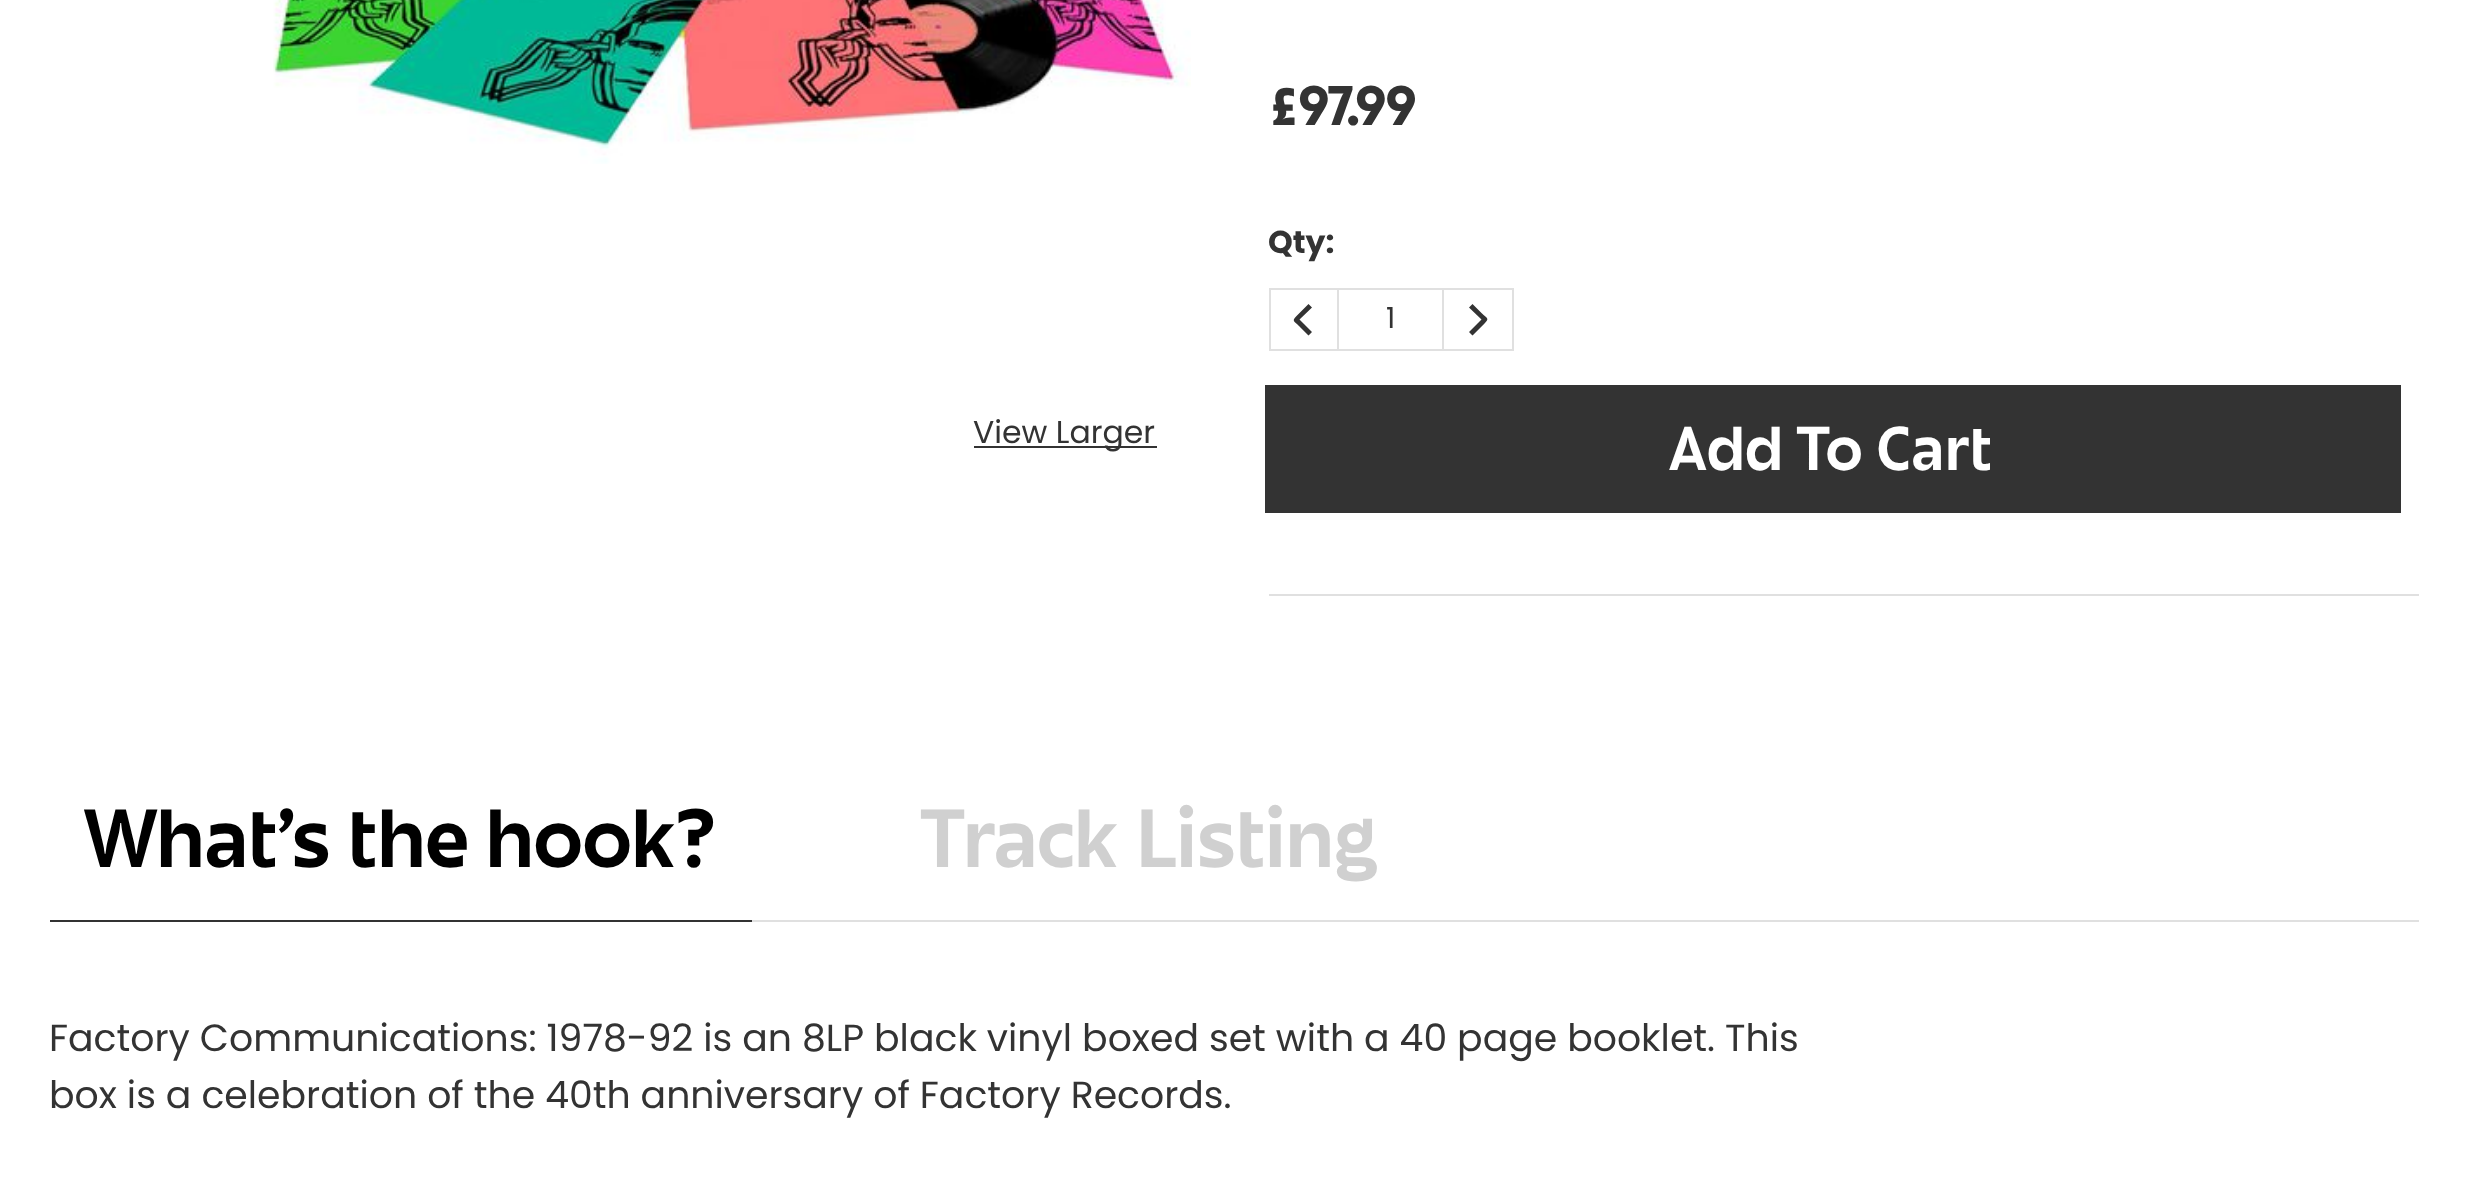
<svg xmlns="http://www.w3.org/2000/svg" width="2467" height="1181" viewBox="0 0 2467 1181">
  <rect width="100%" height="100%" fill="#fff"/>
  <image x="273" y="0" width="918" height="164" href="img/1.png"/>
  <path d="M974 446h183v2H974z" fill="#333"/>
  <path d="M1270 289h68v61H1270z" fill="none" stroke="#e0e0e0" stroke-width="2"/>
  <path d="M1308.5 304L1296.5 316C1291.5 321 1294 321 1299 326L1308.5 335.5L1312 332L1299.5 319.5L1312 307.5Z" fill="#333"/>
  <path d="M1339 288h103v2H1339z" fill="#e0e0e0"/>
  <path d="M1339 349h103v2H1339z" fill="#e0e0e0"/>
  <path d="M1443 289h70v61H1443z" fill="none" stroke="#e0e0e0" stroke-width="2"/>
  <path d="M1472.5 335.5L1484.5 323.5C1489.5 318.5 1487.5 318.5 1482 313.5L1472.5 304L1469 307.5L1481.5 319.5L1469 332Z" fill="#333"/>
  <path d="M1265 385h1136v128H1265z" fill="#333"/>
  <path d="M1269 594h1150v2H1269z" fill="#e0e0e0"/>
  <path d="M752 920h1667v2H752z" fill="#e0e0e0"/>
  <path d="M50 920h702v2H50z" fill="#333"/>
  <text x="973" y="443" font-family="Poppins" font-size="31.5" fill="#333">View Larger</text>
  <text x="1268" y="125" font-family="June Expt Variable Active" font-size="47" font-weight="bold" fill="#333">£97.99</text>
  <text x="1268" y="253" font-family="Poppins" font-size="31.5" font-weight="bold" fill="#333">Qty:</text>
  <text x="1386" y="328" font-family="Poppins" font-size="29" fill="#333">1</text>
  <text x="1670" y="470" font-family="June Expt Variable Active" font-size="54" letter-spacing="1" fill="#fff">Add To Cart</text>
  <text x="85" y="867" font-family="June Expt Variable Active" font-size="72" fill="#000">What’s the hook?</text>
  <text x="922" y="867" font-family="June Expt Variable Active" font-size="72" fill="#d0d0d0">Track Listing</text>
  <g font-family="Poppins" font-size="37.8" fill="#333">
    <text x="49" y="1051" word-spacing="-0.1">Factory Communications: 1978-92 is an 8LP black vinyl boxed set with a 40 page booklet. This</text>
    <text x="49" y="1108" word-spacing="-0.1">box is a celebration of the 40th anniversary of Factory Records.</text>
  </g>
</svg>
